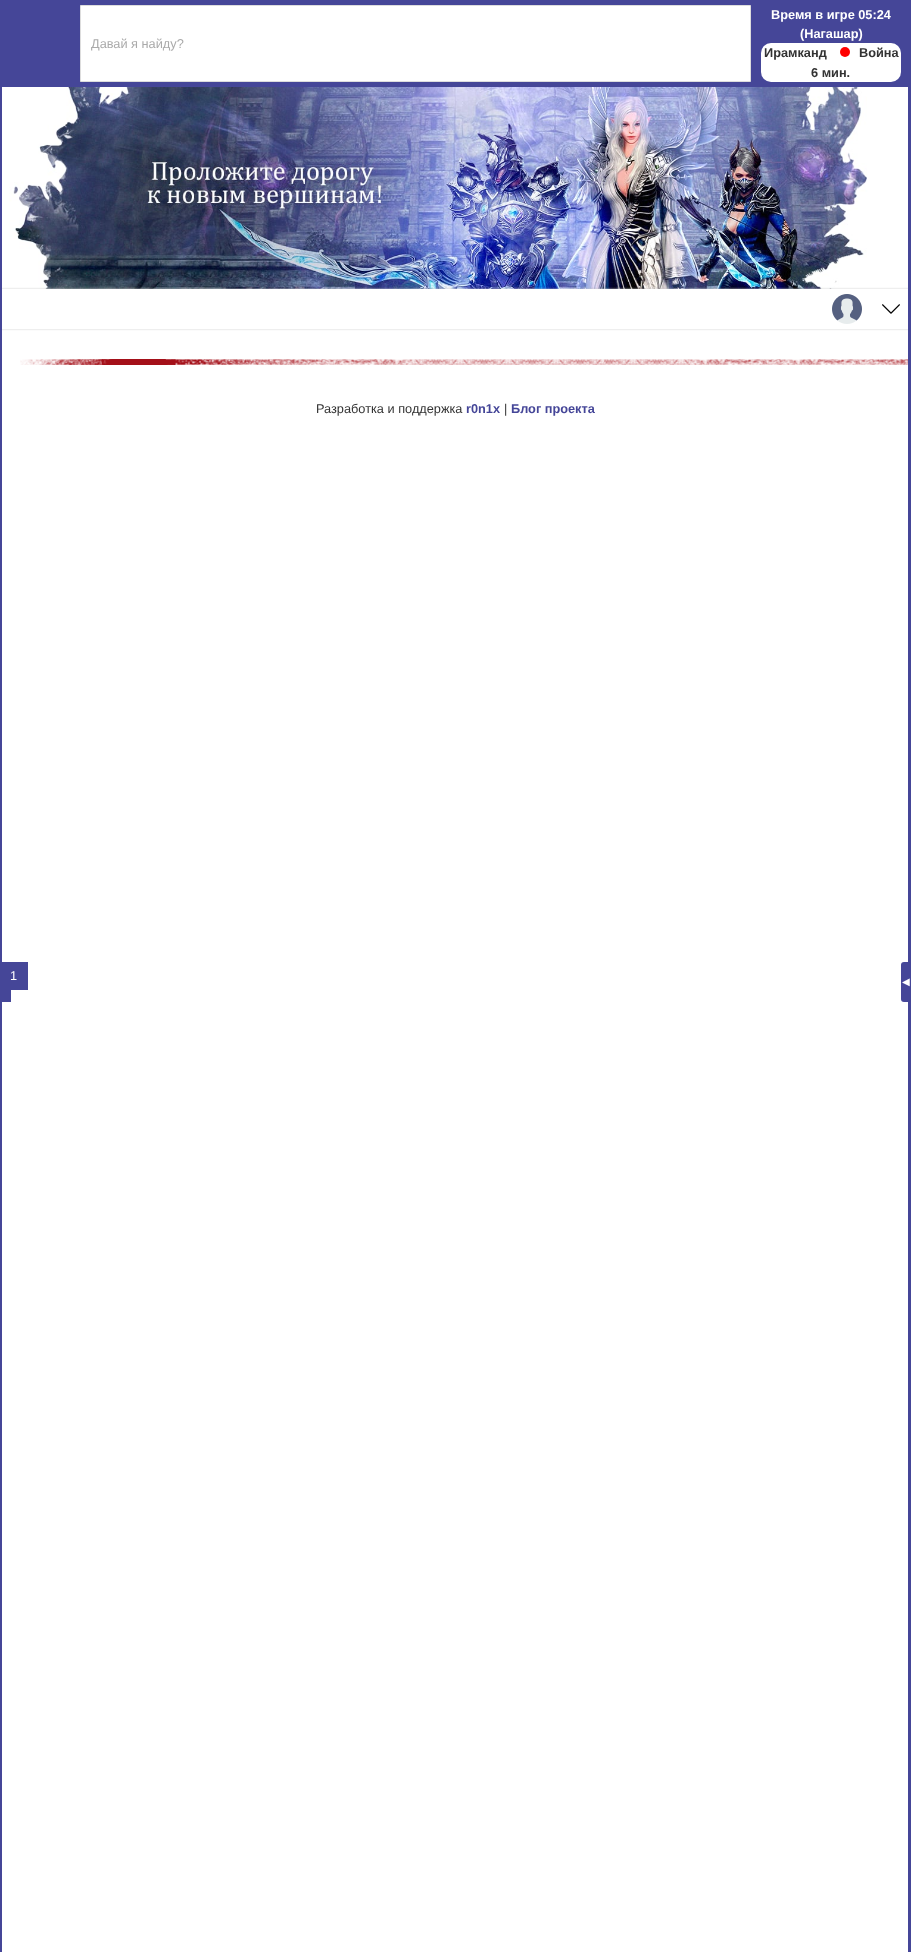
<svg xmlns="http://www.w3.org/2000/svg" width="911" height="1952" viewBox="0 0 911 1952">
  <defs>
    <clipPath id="clip1"><path d="M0 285H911V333H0ZM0 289H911V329H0Z" clip-rule="evenodd"/></clipPath>
  </defs>
  <rect width="100%" height="100%" fill="#fff"/>
  <path d="M2 0h906v87H2z" fill="#454698"/>
  <path d="M80.5 5.5h670v76H80.5z" fill="#fff" stroke="#ddd"/>
  <rect x="761" y="43" width="140" height="39" rx="10" fill="#fff"/>
  <circle cx="845" cy="52" r="5" fill="#f00"/>
  <image x="2" y="87" width="906" height="202" href="img/1.png"/>
  <g clip-path="url(#clip1)">
    <path d="M1 289h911v40H1z" fill="#ccc" filter="blur(1px)"/>
  </g>
  <image x="832" y="294" width="30" height="30" href="img/2.png"/>
  <image x="882" y="304" width="18" height="10" href="img/3.png"/>
  <image x="20" y="359" width="888" height="6" href="img/4.png"/>
  <path d="M0 0h2v1952H0z" fill="#454698"/>
  <path d="M2 962h26v28H2z" fill="#454698"/>
  <path d="M2 990h9v12H2z" fill="#454698"/>
  <path d="M908 0h3v1952H908z" fill="#454698"/>
  <rect x="901" y="962" width="10" height="40" rx="3" fill="#454698"/>
  <text x="91" y="48" font-family="Liberation Sans" font-size="12.75" fill="#aaa">Давай я найду?</text>
  <g font-family="Liberation Sans" font-size="12.75" font-weight="bold" fill="#fff">
    <text x="771" y="19">Время в игре 05:24</text>
    <text x="800" y="38">(Нагашар)</text>
  </g>
  <g font-family="Liberation Sans" font-size="12.75" font-weight="bold" fill="#333">
    <text x="764" y="57">Ирамканд</text>
    <text x="859" y="57">Война</text>
    <text x="811" y="77">6 мин.</text>
  </g>
  <text x="316" y="413" font-family="Liberation Sans" font-size="12.75" fill="#333">Разработка и поддержка</text>
  <text x="466" y="413" font-family="Liberation Sans" font-size="12.75" font-weight="bold" fill="#454698">r0n1x</text>
  <text x="504" y="413" font-family="Liberation Sans" font-size="12.75" fill="#333">|</text>
  <text x="511" y="413" font-family="Liberation Sans" font-size="12.75" font-weight="bold" fill="#454698">Блог проекта</text>
  <text x="10" y="980" font-family="Liberation Sans" font-size="12.75" fill="#fff">1</text>
  <text x="902" y="985" font-family="DejaVu Sans" font-size="10" fill="#fff">◀</text>
</svg>
